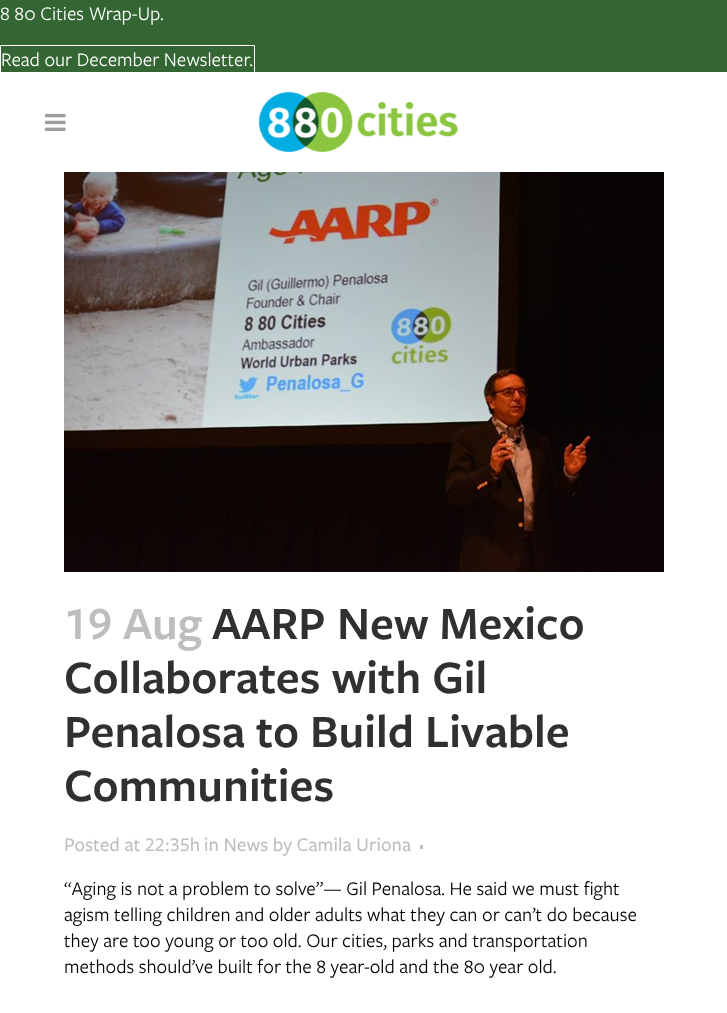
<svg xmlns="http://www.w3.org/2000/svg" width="727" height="1013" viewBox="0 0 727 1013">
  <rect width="100%" height="100%" fill="#fff"/>
  <path d="M0 0h727v72H0z" fill="#363"/>
  <path d="M0.5 45.5h254v27H0.5z" fill="none" stroke="#fff"/>
  <image x="45" y="113" width="21" height="18" href="img/1.png"/>
  <image x="258" y="92" width="201" height="60" href="img/2.png"/>
  <image x="64" y="172" width="600" height="400" href="img/3.png"/>
  <path d="M420 845h3v4H420z" fill="#bebebe"/>
  <g font-family="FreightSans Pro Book" font-size="20" fill="#fff">
    <text x="0" y="20">8 80 Cities Wrap-Up.</text>
    <text x="1" y="66">Read our December Newsletter.</text>
  </g>
  <text x="64" y="639" font-family="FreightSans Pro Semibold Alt" font-size="48" font-weight="600" fill="#bebebe">19 Aug</text>
  <g font-family="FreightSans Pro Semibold" font-size="48" font-weight="600" fill="#303030">
    <text x="212" y="639">AARP New Mexico</text>
    <text x="64" y="693">Collaborates with Gil</text>
    <text x="64" y="747">Penalosa to Build Livable</text>
    <text x="64" y="801">Communities</text>
  </g>
  <text x="64" y="851" font-family="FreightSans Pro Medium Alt" font-size="20" font-weight="500" fill="#bebebe">Posted at 22:35h</text>
  <text x="204" y="851" font-family="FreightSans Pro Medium" font-size="20" font-weight="500" fill="#bebebe">in News by Camila Uriona</text>
  <g font-family="FreightSans Pro Book" font-size="20" fill="#000">
    <text x="64" y="895">“Aging is not a problem to solve”— Gil Penalosa. He said we must fight</text>
    <text x="64" y="921">agism telling children and older adults what they can or can’t do because</text>
    <text x="64" y="947">they are too young or too old. Our cities, parks and transportation</text>
    <text x="64" y="973">methods should’ve built for the 8 year-old and the 80 year old.</text>
  </g>
</svg>
